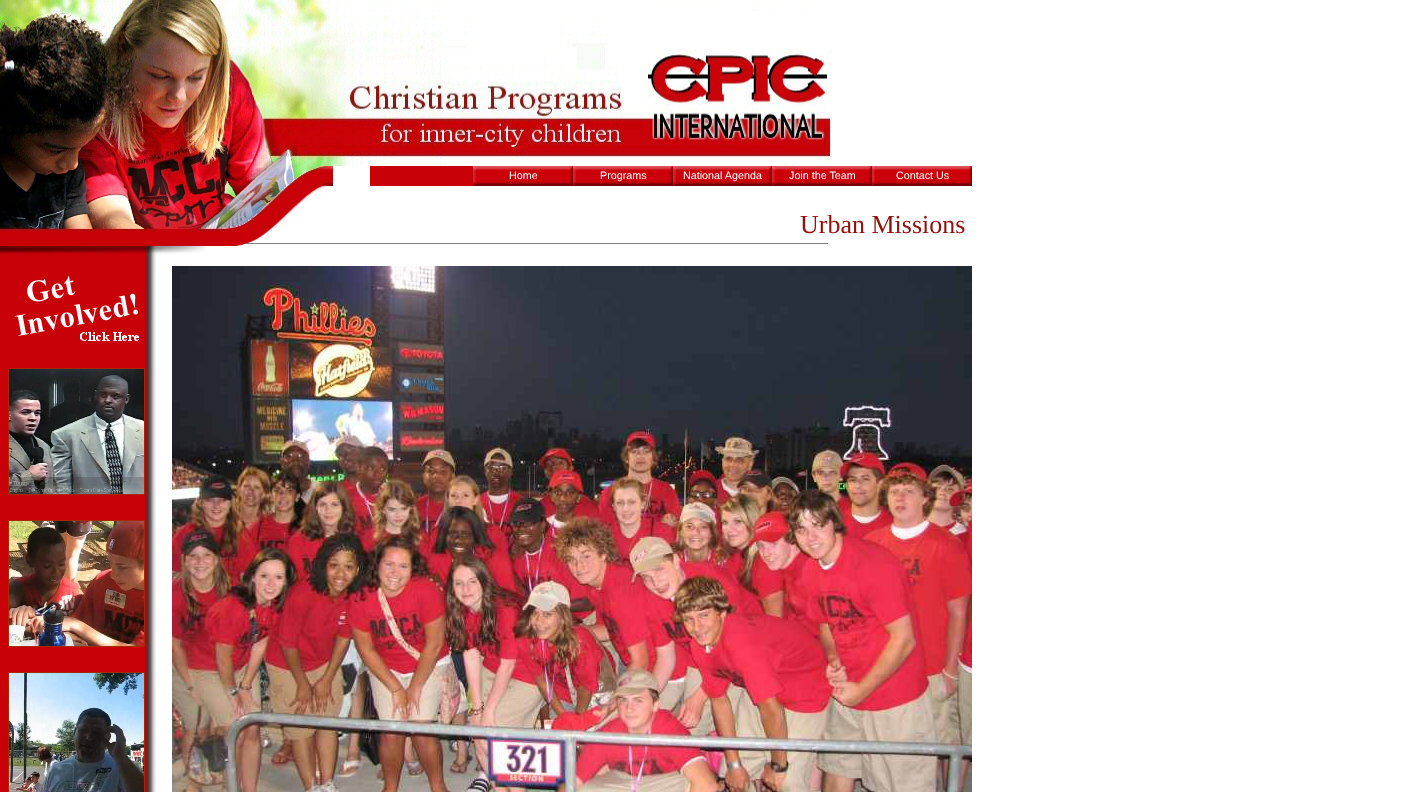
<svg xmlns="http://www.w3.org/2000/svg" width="1413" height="792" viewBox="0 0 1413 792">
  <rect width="100%" height="100%" fill="#fff"/>
  <image x="0" y="0" width="156" height="1" href="img/1.png"/>
  <image x="156" y="0" width="168" height="1" href="img/2.png"/>
  <image x="0" y="1" width="832" height="165" href="img/3.png"/>
  <image x="0" y="166" width="333" height="20" href="img/4.png"/>
  <path d="M370 166h103v20H370z" fill="#c80108"/>
  <image x="473" y="166" width="4" height="20" href="img/5.png"/>
  <image x="477" y="166" width="92" height="20" href="img/6.png"/>
  <image x="569" y="166" width="4" height="20" href="img/7.png"/>
  <image x="573" y="166" width="4" height="20" href="img/5.png"/>
  <image x="577" y="166" width="92" height="20" href="img/6.png"/>
  <image x="669" y="166" width="4" height="20" href="img/7.png"/>
  <image x="673" y="166" width="4" height="20" href="img/5.png"/>
  <image x="677" y="166" width="91" height="20" href="img/8.png"/>
  <image x="768" y="166" width="4" height="20" href="img/7.png"/>
  <image x="772" y="166" width="4" height="20" href="img/5.png"/>
  <image x="776" y="166" width="92" height="20" href="img/6.png"/>
  <image x="868" y="166" width="4" height="20" href="img/7.png"/>
  <image x="872" y="166" width="4" height="20" href="img/5.png"/>
  <image x="876" y="166" width="92" height="20" href="img/6.png"/>
  <image x="968" y="166" width="4" height="20" href="img/7.png"/>
  <image x="0" y="186" width="329" height="54" href="img/9.png"/>
  <image x="0" y="240" width="828" height="14" href="img/10.png"/>
  <image x="0" y="254" width="156" height="538" href="img/11.png"/>
  <image x="14" y="276" width="125" height="65" href="img/12.png"/>
  <path d="M8.5 368.5h136v126H8.5z" fill="none" stroke="#a62900"/>
  <image x="9" y="369" width="135" height="125" href="img/13.png"/>
  <path d="M8.5 520.5h136v126H8.5z" fill="none" stroke="#a62900"/>
  <image x="9" y="521" width="135" height="125" href="img/14.png"/>
  <path d="M8.5 672.5h136v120H8.5z" fill="none" stroke="#a62900"/>
  <image x="9" y="673" width="135" height="119" href="img/15.png"/>
  <image x="172" y="266" width="800" height="526" href="img/16.png"/>
  <g font-family="Liberation Sans" font-size="10.75" fill="#fff">
    <text x="509" y="179">Home</text>
    <text x="600" y="179">Programs</text>
    <text x="683" y="179">National Agenda</text>
    <text x="789" y="179">Join the Team</text>
    <text x="896" y="179">Contact Us</text>
  </g>
  <text x="800" y="233" font-family="Liberation Serif" font-size="26" fill="#930f0b">Urban Missions</text>
</svg>
